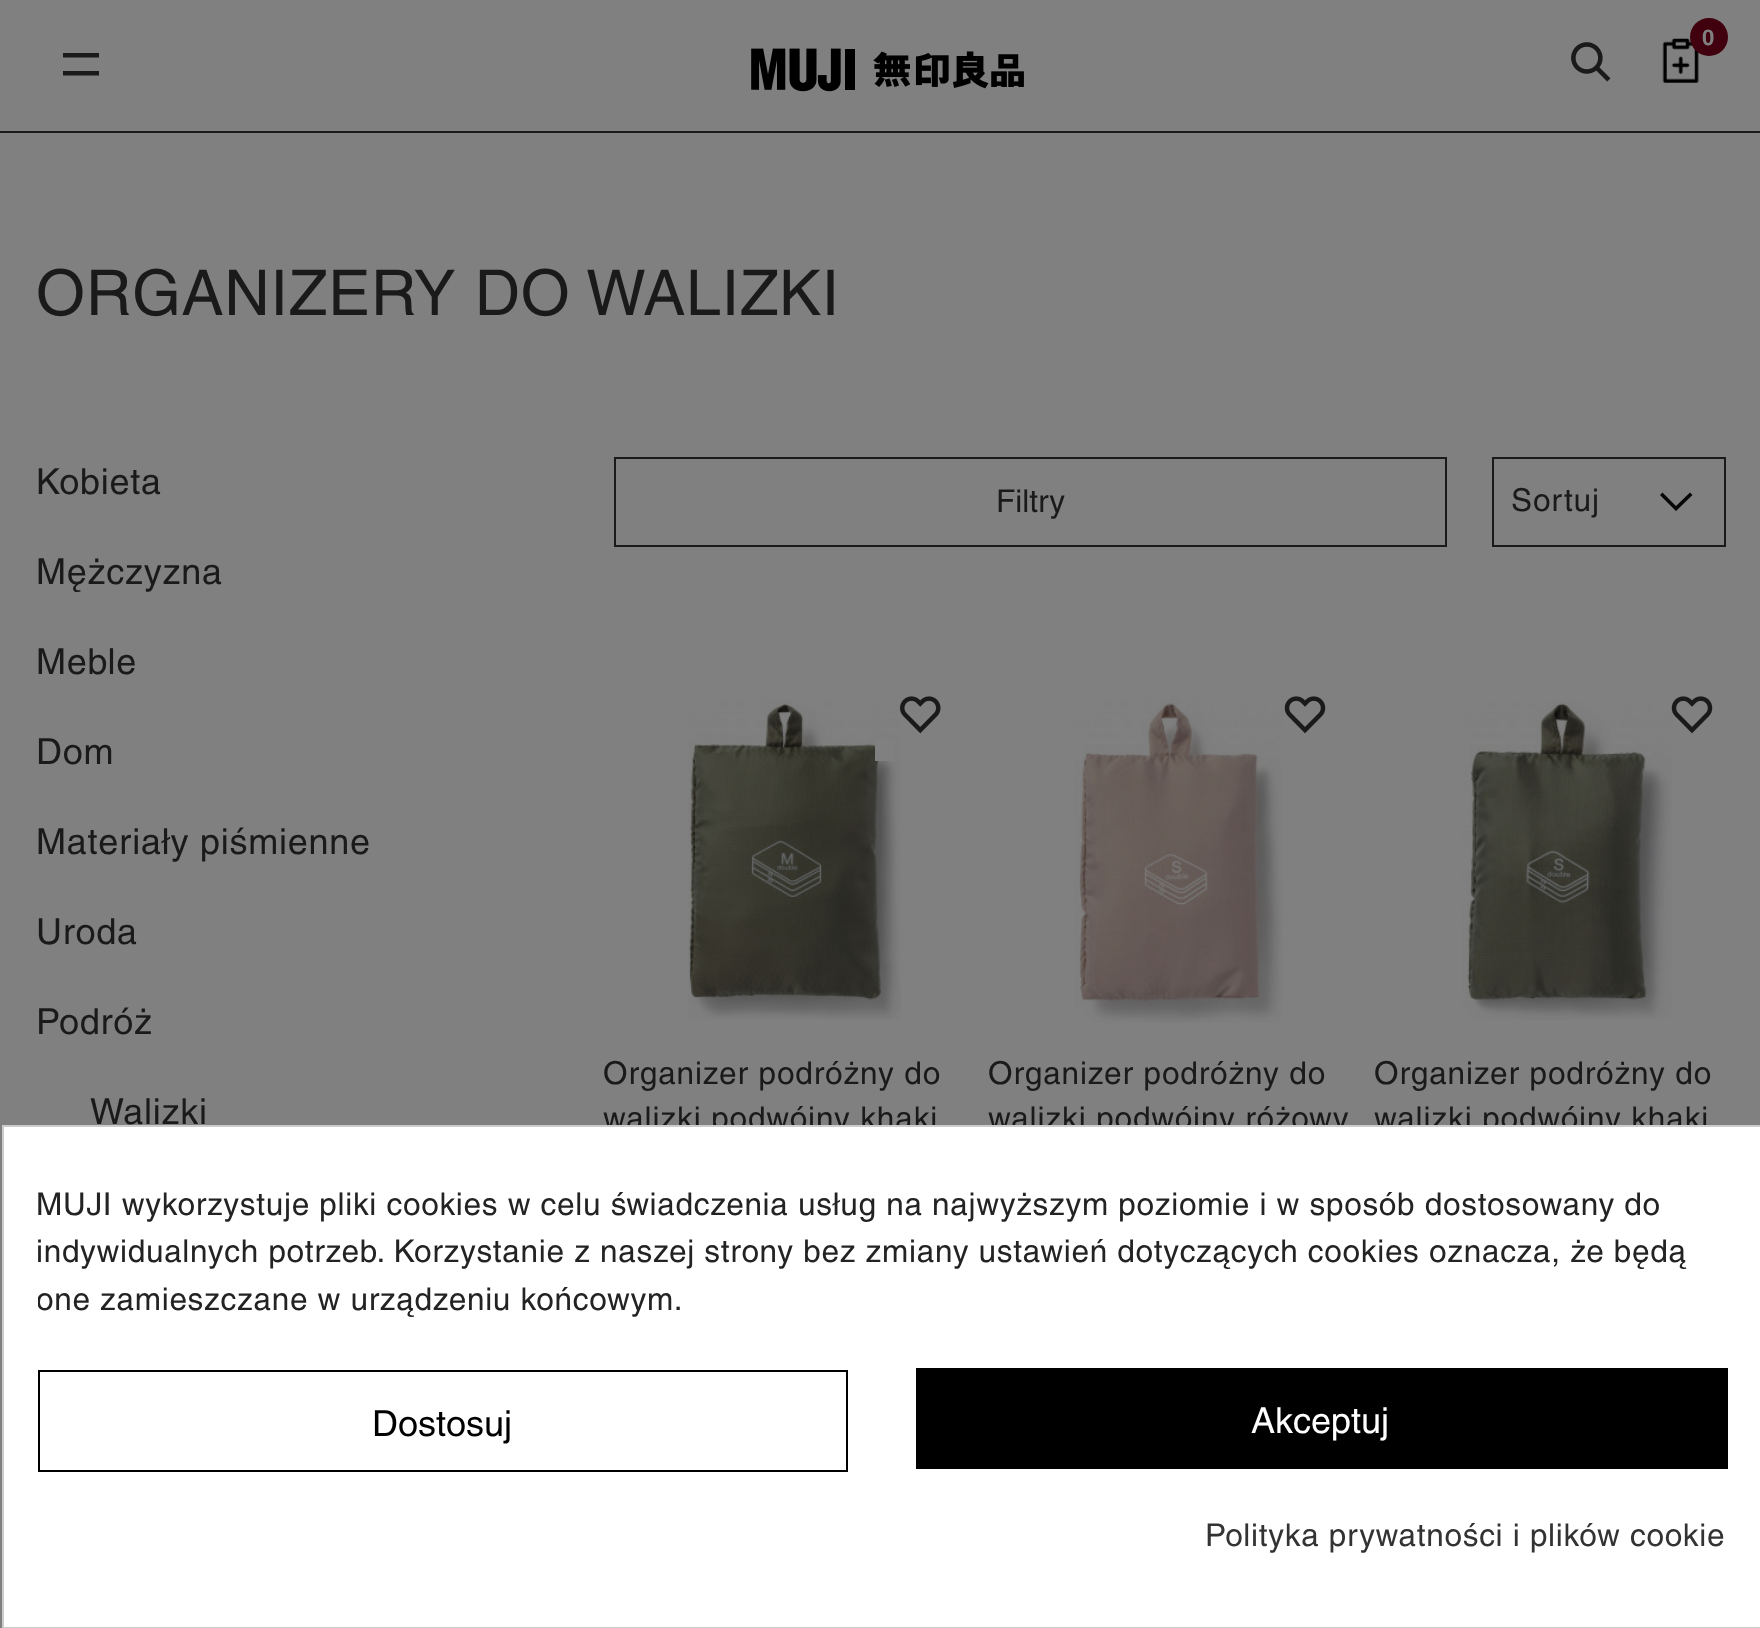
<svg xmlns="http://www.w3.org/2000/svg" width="1760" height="1628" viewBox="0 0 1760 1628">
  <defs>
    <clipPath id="clip1"><path d="M38 1181h1690v142H38z"/></clipPath>
  </defs>
  <rect width="100%" height="100%" fill="#808080"/>
  <path d="M0 131h1760v2H0z" fill="#1a1a1a"/>
  <image x="1662" y="38" width="37" height="45" href="img/1.png"/>
  <circle cx="1709" cy="37" r="19" fill="#40000d"/>
  <image x="1571" y="42" width="40" height="40" href="img/2.png"/>
  <path d="M63 57.5V53H99V57.5ZM63 75.5V71H99V75.5Z" fill="#1a1a1a"/>
  <image x="751" y="48" width="273" height="44" href="img/3.png"/>
  <path d="M615 458h831v88H615z" fill="none" stroke="#1a1a1a" stroke-width="2"/>
  <path d="M1676 506L1690 492.5L1692.5 495L1676 511L1660 495L1662.5 492.5Z" fill="#070707" fill-rule="evenodd"/>
  <path d="M1493 458h232v88H1493z" fill="none" stroke="#1a1a1a" stroke-width="2"/>
  <image x="688" y="699" width="213" height="321" href="img/4.png"/>
  <path d="M875 739h19v22H875z" fill="#808080"/>
  <image x="900" y="696" width="41" height="38" href="img/5.png"/>
  <image x="1074" y="699" width="209" height="324" href="img/6.png"/>
  <image x="1284" y="696" width="42" height="38" href="img/7.png"/>
  <image x="1462" y="701" width="210" height="319" href="img/8.png"/>
  <path d="M1647 747h4v9H1647z" fill="#808080"/>
  <image x="1671" y="696" width="42" height="38" href="img/7.png"/>
  <text x="1702" y="45" font-family="Helvetica" font-size="22" font-weight="bold" letter-spacing="0.71" fill="#808080">0</text>
  <text x="36" y="315" font-family="Helvetica" font-size="63" letter-spacing="0.71" fill="#1a1a1a">ORGANIZERY DO WALIZKI</text>
  <g font-family="Helvetica" font-size="36" letter-spacing="0.75" fill="#1a1a1a">
    <text x="36" y="494">Kobieta</text>
    <text x="36" y="584">Mężczyzna</text>
    <text x="36" y="674">Meble</text>
    <text x="36" y="764">Dom</text>
    <text x="36" y="854">Materiały piśmienne</text>
    <text x="36" y="944">Uroda</text>
    <text x="36" y="1034">Podróż</text>
    <text x="90" y="1124">Walizki</text>
  </g>
  <text x="996" y="512" font-family="Helvetica" font-size="31.5" fill="#1a1a1a">Filtry</text>
  <g font-family="Helvetica" font-size="31.5" letter-spacing="0.9" fill="#1a1a1a">
    <text x="1511" y="511">Sortuj</text>
    <text x="603" y="1084">Organizer podróżny do</text>
    <text x="603" y="1129">walizki podwójny khaki</text>
    <text x="988" y="1084">Organizer podróżny do</text>
    <text x="988" y="1129">walizki podwójny różowy</text>
    <text x="1374" y="1084">Organizer podróżny do</text>
    <text x="1374" y="1129">walizki podwójny khaki</text>
  </g>
  <path d="M3 1126h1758v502H3z" fill="#fff" stroke="#ccc" stroke-width="2"/>
  <g font-family="Helvetica" font-size="31.5" letter-spacing="0.71" fill="#232323">
    <text x="36" y="1215">MUJI wykorzystuje pliki cookies w celu świadczenia usług na najwyższym poziomie i w sposób dostosowany do</text>
    <text x="36" y="1262">indywidualnych potrzeb. Korzystanie z naszej strony bez zmiany ustawień dotyczących cookies oznacza, że będą</text>
  </g>
  <g clip-path="url(#clip1)">
    <text x="36" y="1310" font-family="Helvetica" font-size="31.5" letter-spacing="0.71" fill="#232323">one zamieszczane w urządzeniu końcowym.</text>
  </g>
  <path d="M39 1371h808v100H39z" fill="none" stroke="#000" stroke-width="2"/>
  <text x="372" y="1436" font-family="Helvetica" font-size="36" fill="#000">Dostosuj</text>
  <path d="M916 1368h812v101H916z" fill="#000"/>
  <text x="1251" y="1433" font-family="Helvetica" font-size="36" fill="#fff">Akceptuj</text>
  <text x="1205" y="1546" font-family="Helvetica" font-size="31.5" letter-spacing="0.71" fill="#333">Polityka prywatności i plików cookie</text>
</svg>
